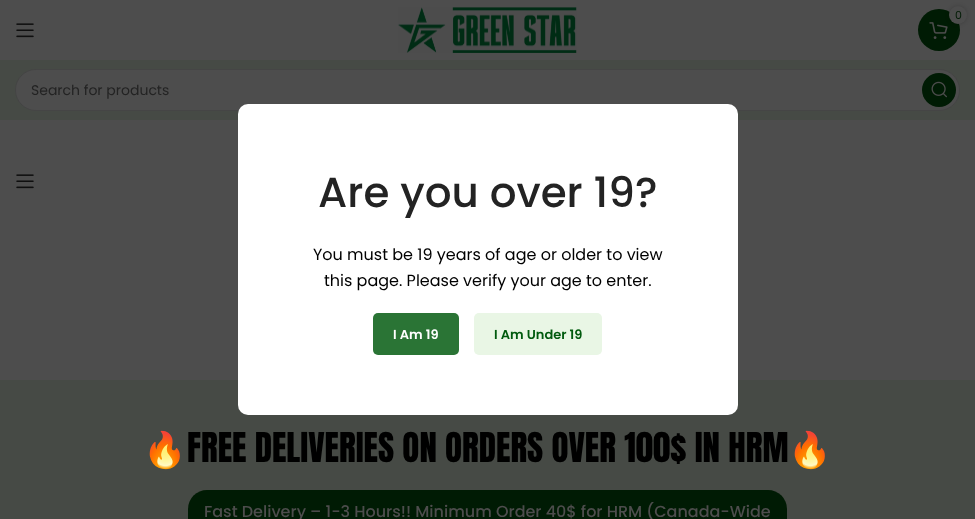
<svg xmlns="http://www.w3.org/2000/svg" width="975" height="519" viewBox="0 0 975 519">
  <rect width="100%" height="100%" fill="#4d4d4d"/>
  <image x="16" y="174" width="18" height="15" href="img/1.png"/>
  <image x="398" y="7" width="179" height="46" href="img/2.png"/>
  <circle cx="939" cy="30" r="21" fill="#001b04"/>
  <image x="929" y="22" width="19" height="17" href="img/3.png"/>
  <rect x="949" y="6" width="18" height="18" rx="9" fill="#0000002b" filter="blur(2px)"/>
  <circle cx="958" cy="15" r="9" fill="#4d4d4d"/>
  <image x="16" y="23" width="18" height="15" href="img/1.png"/>
  <path d="M0 60h975v60H0z" fill="#464a45"/>
  <rect x="15" y="69" width="945" height="42" rx="21" fill="#4d4d4d"/>
  <rect x="15.5" y="69.5" width="944" height="41" rx="20.5" fill="none" stroke="#0000001a"/>
  <circle cx="939" cy="90" r="17" fill="#001b04"/>
  <image x="931" y="81" width="16" height="17" href="img/4.png"/>
  <path d="M0 380h975v139H0z" fill="#464a45"/>
  <rect x="188" y="490" width="599" height="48" rx="19" fill="#001b04"/>
  <rect x="238" y="104" width="500" height="311" rx="10" fill="#fff"/>
  <rect x="373" y="313" width="86" height="42" rx="5" fill="#2a7435"/>
  <rect x="474" y="313" width="128" height="42" rx="5" fill="#e9f6e5"/>
  <text x="955" y="19" font-family="Poppins" font-size="11" fill="#001b04">0</text>
  <text x="31" y="95" font-family="Poppins" font-size="14" fill="#232323">Search for products</text>
  <text x="143" y="462" font-family="Noto Color Emoji" font-size="35" fill="#000">🔥</text>
  <text x="187" y="462" font-family="Anton" font-size="35" fill="#000">FREE DELIVERIES ON ORDERS OVER 100$ IN HRM</text>
  <text x="788" y="462" font-family="Noto Color Emoji" font-size="35" fill="#000">🔥</text>
  <text x="204" y="517" font-family="Poppins" font-size="16" font-weight="500" fill="#4d4d4d">Fast Delivery – 1-3 Hours!! Minimum Order 40$ for HRM (Canada-Wide</text>
  <text x="318" y="207" font-family="Poppins" font-size="42" font-weight="500" fill="#232323">Are you over 19?</text>
  <g font-family="Poppins" font-size="16" fill="#000">
    <text x="313" y="260">You must be 19 years of age or older to view</text>
    <text x="324" y="286">this page. Please verify your age to enter.</text>
  </g>
  <text x="393" y="339" font-family="Poppins" font-size="13" font-weight="600" fill="#fff">I Am 19</text>
  <text x="494" y="339" font-family="Poppins" font-size="13" font-weight="600" fill="#015a0e">I Am Under 19</text>
</svg>
